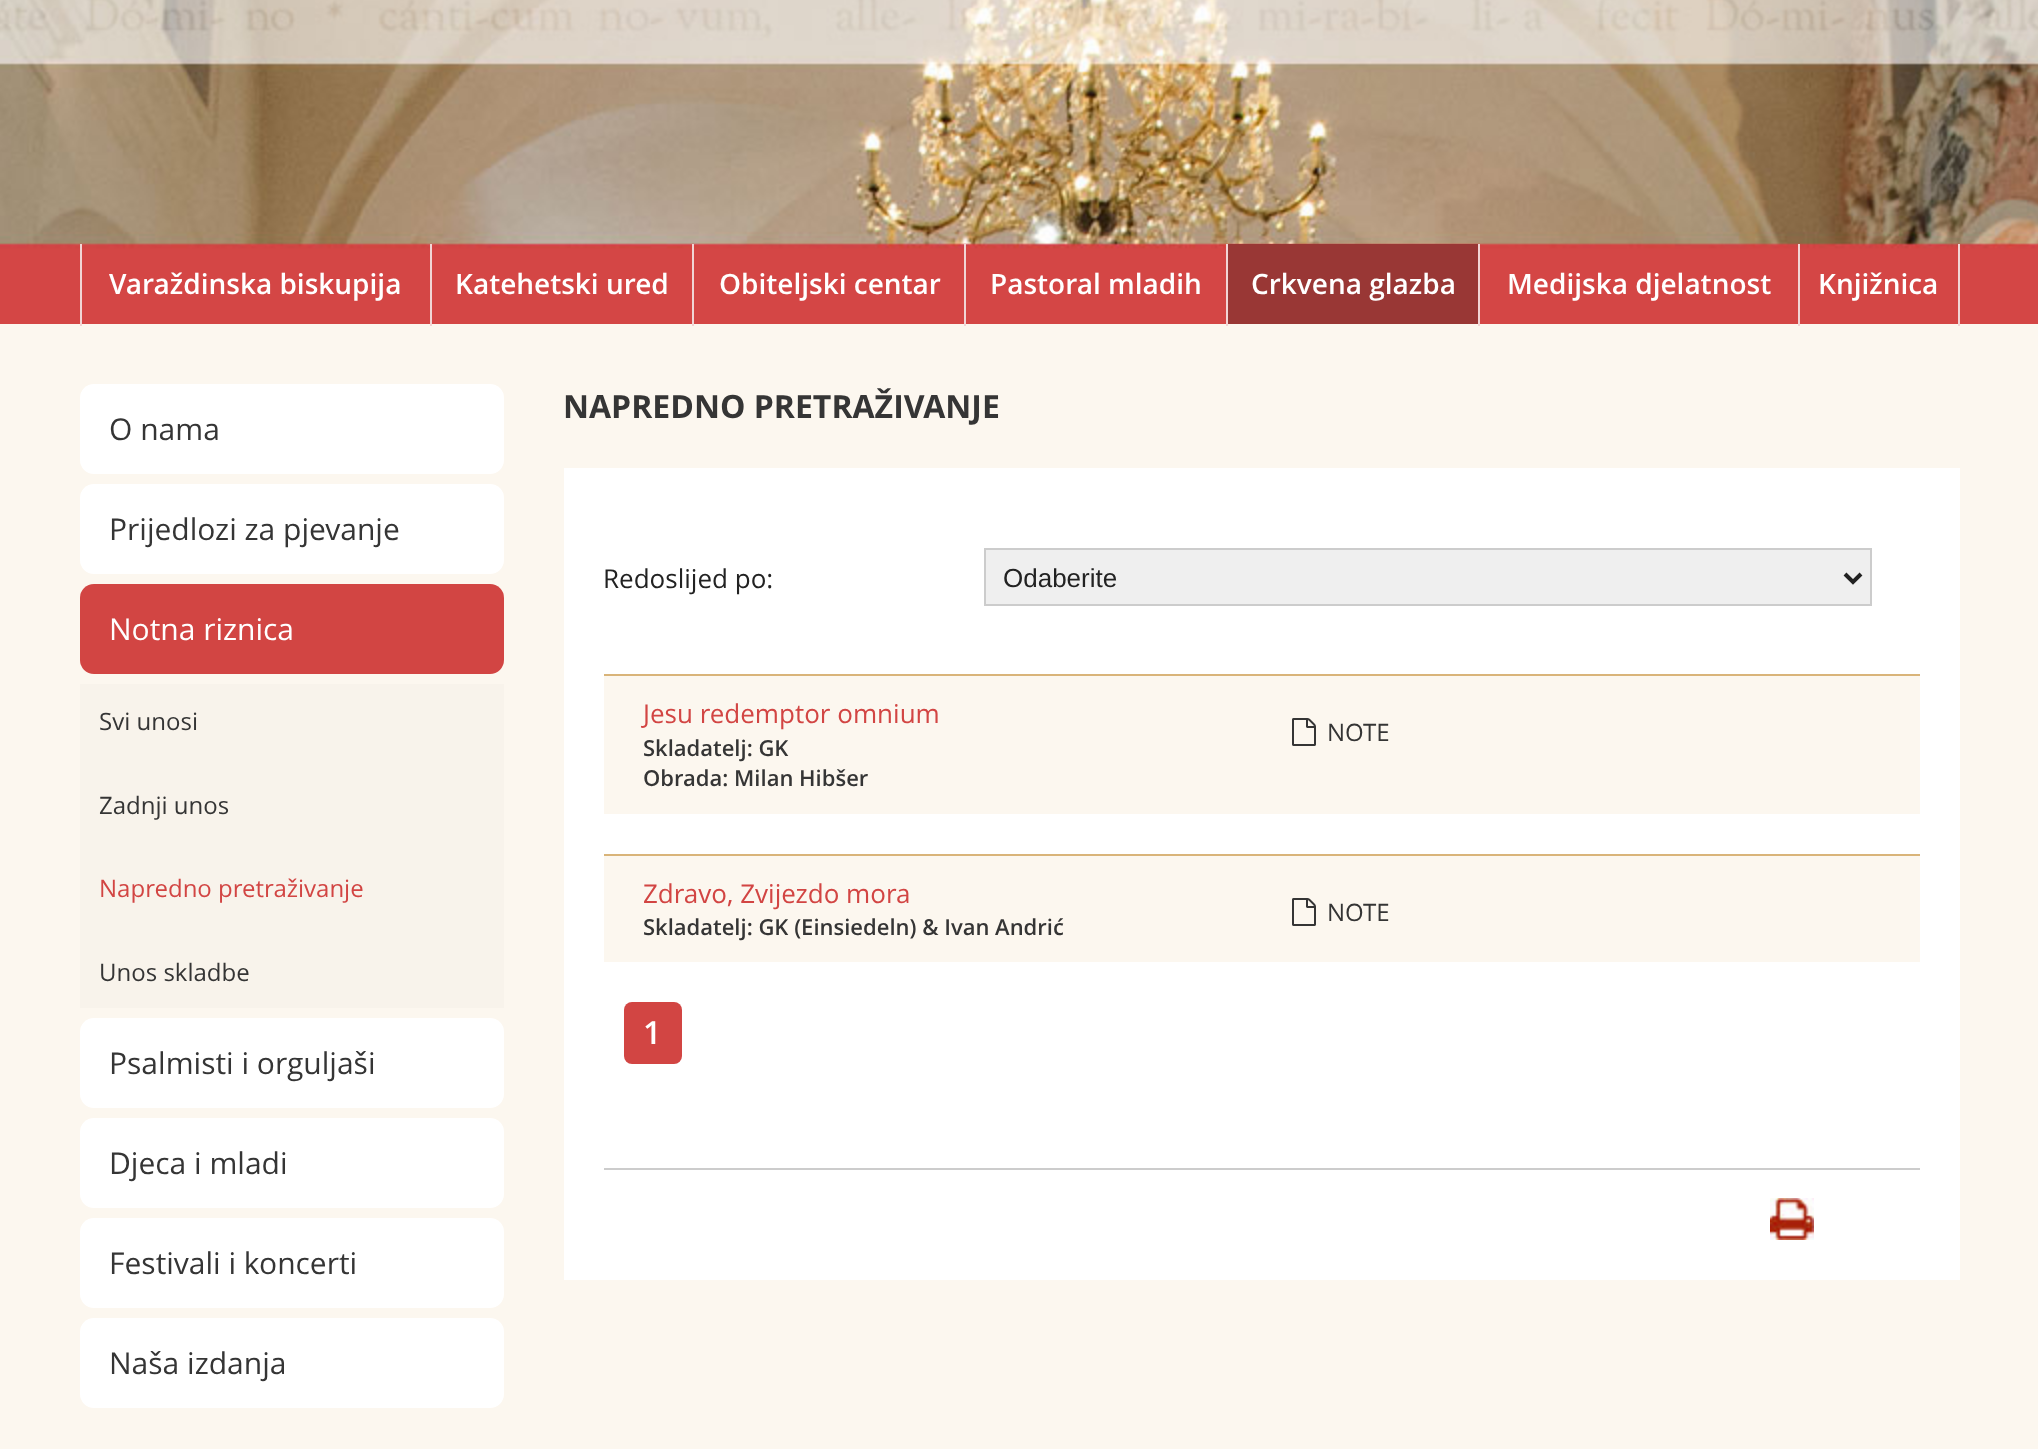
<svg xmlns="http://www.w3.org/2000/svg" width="2038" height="1449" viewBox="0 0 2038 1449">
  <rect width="100%" height="100%" fill="#fcf7ef"/>
  <image x="0" y="0" width="2038" height="324" href="img/1.png"/>
  <path d="M80 244h2v82H80z" fill="#f1d5d5"/>
  <path d="M430 244h2v82H430z" fill="#f1d5d5"/>
  <path d="M692 244h2v82H692z" fill="#f1d5d5"/>
  <path d="M964 244h2v82H964z" fill="#f1d5d5"/>
  <path d="M1226 244h2v82H1226z" fill="#f1d5d5"/>
  <path d="M1228 244h250v80H1228z" fill="#993735"/>
  <path d="M1478 244h2v82H1478z" fill="#f1d5d5"/>
  <path d="M1958 244h2v82H1958z" fill="#f1d5d5"/>
  <path d="M1798 244h2v82H1798z" fill="#f1d5d5"/>
  <rect x="80" y="384" width="424" height="90" rx="14" fill="#fff"/>
  <rect x="80" y="484" width="424" height="90" rx="14" fill="#fff"/>
  <rect x="80" y="584" width="424" height="90" rx="14" fill="#d24543"/>
  <path d="M80 684h424v324H80z" fill="#f8f3eb"/>
  <rect x="80" y="1018" width="424" height="90" rx="14" fill="#fff"/>
  <rect x="80" y="1118" width="424" height="90" rx="14" fill="#fff"/>
  <rect x="80" y="1218" width="424" height="90" rx="14" fill="#fff"/>
  <rect x="80" y="1318" width="424" height="90" rx="14" fill="#fff"/>
  <path d="M564 468h1396v812H564z" fill="#fff"/>
  <path d="M985 549h886v56H985z" fill="#efefef" stroke="#ccc" stroke-width="2"/>
  <path d="M1845 574L1853 582L1861 574" fill="none" stroke="#222" stroke-width="4"/>
  <path d="M604 676h1316v138H604z" fill="#fcf7ef"/>
  <path d="M604 674h1316v2H604z" fill="#d9b479"/>
  <image x="1292" y="718" width="24" height="28" href="img/2.png"/>
  <path d="M604 856h1316v106H604z" fill="#fcf7ef"/>
  <path d="M604 854h1316v2H604z" fill="#d9b479"/>
  <image x="1292" y="898" width="24" height="28" href="img/2.png"/>
  <rect x="624" y="1002" width="58" height="62" rx="8" fill="#d24543"/>
  <path d="M604 1168h1316v2H604z" fill="#ccc"/>
  <image x="1770" y="1198" width="44" height="42" href="img/3.png"/>
  <g font-family="Open Sans" font-size="28" font-weight="600" fill="#fff">
    <text x="109" y="294">Varaždinska biskupija</text>
    <text x="455" y="294">Katehetski ured</text>
    <text x="719" y="294">Obiteljski centar</text>
    <text x="990" y="294">Pastoral mladih</text>
    <text x="1251" y="294">Crkvena glazba</text>
    <text x="1507" y="294">Medijska djelatnost</text>
    <text x="1818" y="294">Knjižnica</text>
  </g>
  <g font-family="Open Sans" font-size="30" fill="#353535">
    <text x="109" y="440">O nama</text>
    <text x="109" y="540">Prijedlozi za pjevanje</text>
  </g>
  <text x="109" y="640" font-family="Open Sans" font-size="30" fill="#fff">Notna riznica</text>
  <g font-family="Open Sans" font-size="24" fill="#353535">
    <text x="99" y="730">Svi unosi</text>
    <text x="99" y="814">Zadnji unos</text>
  </g>
  <text x="99" y="897" font-family="Open Sans" font-size="24" fill="#d24543">Napredno pretraživanje</text>
  <text x="99" y="981" font-family="Open Sans" font-size="24" fill="#353535">Unos skladbe</text>
  <g font-family="Open Sans" font-size="30" fill="#353535">
    <text x="109" y="1074">Psalmisti i orguljaši</text>
    <text x="109" y="1174">Djeca i mladi</text>
    <text x="109" y="1274">Festivali i koncerti</text>
    <text x="109" y="1374">Naša izdanja</text>
  </g>
  <text x="563" y="418" font-family="Open Sans" font-size="32" font-weight="bold" fill="#353535">NAPREDNO PRETRAŽIVANJE</text>
  <text x="603" y="588" font-family="Open Sans" font-size="26" fill="#222">Redoslijed po:</text>
  <text x="1003" y="587" font-family="Liberation Sans" font-size="26" fill="#222">Odaberite</text>
  <text x="643" y="723" font-family="Open Sans" font-size="26" fill="#d24543">Jesu redemptor omnium</text>
  <g font-family="Open Sans" font-size="22" font-weight="600" fill="#353535">
    <text x="643" y="756">Skladatelj: GK</text>
    <text x="643" y="786">Obrada: Milan Hibšer</text>
  </g>
  <text x="1327" y="741" font-family="Open Sans" font-size="24" fill="#353535">NOTE</text>
  <text x="643" y="903" font-family="Open Sans" font-size="26" fill="#d24543">Zdravo, Zvijezdo mora</text>
  <text x="643" y="935" font-family="Open Sans" font-size="22" font-weight="600" fill="#353535">Skladatelj: GK (Einsiedeln) &amp; Ivan Andrić</text>
  <text x="1327" y="921" font-family="Open Sans" font-size="24" fill="#353535">NOTE</text>
  <text x="643" y="1044" font-family="Open Sans" font-size="32" font-weight="600" fill="#fff">1</text>
</svg>
